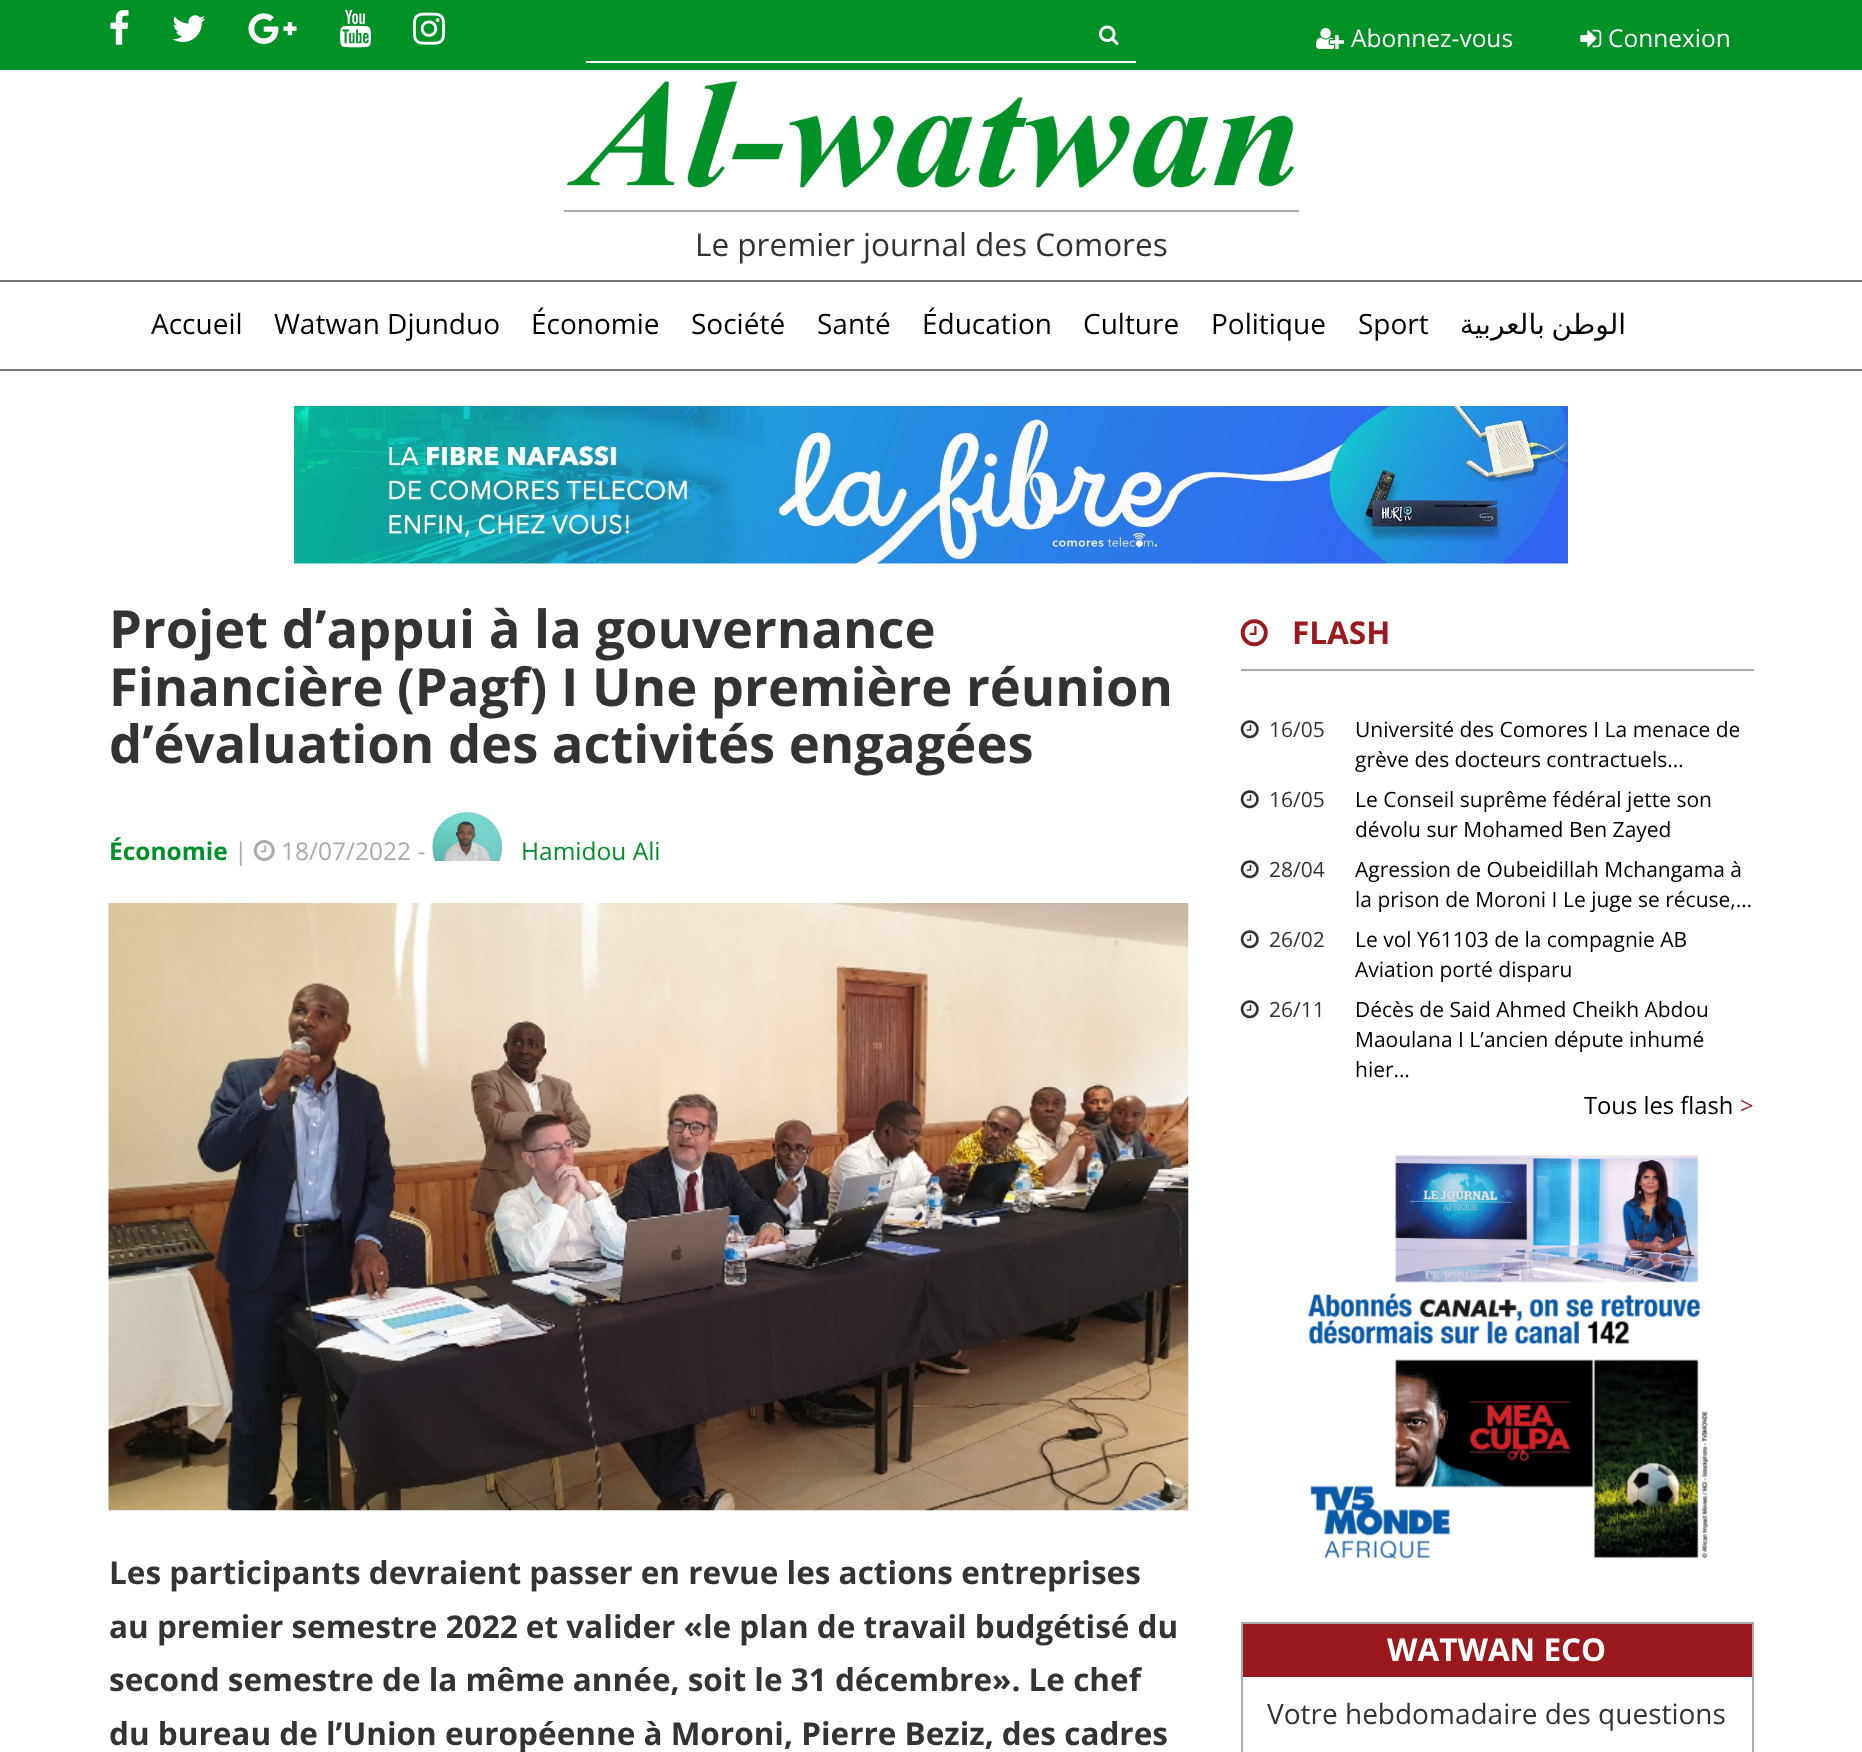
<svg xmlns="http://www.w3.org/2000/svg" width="1862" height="1752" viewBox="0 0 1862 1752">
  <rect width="100%" height="100%" fill="#fff"/>
  <path d="M0 0h1862v70H0z" fill="#009127"/>
  <image x="110" y="10" width="19" height="35" href="img/1.png"/>
  <image x="172" y="15" width="34" height="27" href="img/2.png"/>
  <image x="248" y="13" width="49" height="31" href="img/3.png"/>
  <image x="340" y="10" width="31" height="38" href="img/4.png"/>
  <image x="413" y="12" width="32" height="33" href="img/5.png"/>
  <path d="M586 61h550v2H586z" fill="#fff"/>
  <image x="1099" y="25" width="20" height="20" href="img/6.png"/>
  <image x="1316" y="28" width="28" height="21" href="img/7.png"/>
  <image x="1580" y="29" width="22" height="19" href="img/8.png"/>
  <image x="567" y="81" width="727" height="107" href="img/9.png"/>
  <path d="M564 210h735v2H564z" fill="#aaa"/>
  <path d="M0 280h1862v2H0z" fill="#777"/>
  <path d="M0 369h1862v2H0z" fill="#777"/>
  <image x="294" y="406" width="1274" height="158" href="img/10.png"/>
  <image x="253" y="840" width="22" height="21" href="img/11.png"/>
  <image x="432" y="812" width="71" height="49" href="img/12.png"/>
  <image x="108" y="903" width="1081" height="608" href="img/13.png"/>
  <path d="M1241 669h513v2H1241z" fill="#aaa"/>
  <image x="1240" y="619" width="28" height="28" href="img/14.png"/>
  <image x="1240" y="720" width="19" height="19" href="img/15.png"/>
  <image x="1240" y="790" width="19" height="19" href="img/15.png"/>
  <image x="1240" y="860" width="19" height="19" href="img/15.png"/>
  <image x="1240" y="930" width="19" height="19" href="img/15.png"/>
  <image x="1240" y="1000" width="19" height="19" href="img/15.png"/>
  <image x="1307" y="1155" width="402" height="405" href="img/16.png"/>
  <path d="M1242 1623h511v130H1242z" fill="none" stroke="#aaa" stroke-width="2"/>
  <path d="M1243 1624h509v53H1243z" fill="#9b181c"/>
  <g font-family="Open Sans" font-size="24.5" fill="#fff">
    <text x="1351" y="47">Abonnez-vous</text>
    <text x="1608" y="47">Connexion</text>
  </g>
  <text x="695" y="256" font-family="Open Sans" font-size="31.5" fill="#333">Le premier journal des Comores</text>
  <g font-family="Open Sans" font-size="28" fill="#000">
    <text x="151" y="334">Accueil</text>
    <text x="274" y="334">Watwan Djunduo</text>
    <text x="531" y="334">Économie</text>
    <text x="691" y="334">Société</text>
    <text x="817" y="334">Santé</text>
    <text x="922" y="334">Éducation</text>
    <text x="1083" y="334">Culture</text>
    <text x="1211" y="334">Politique</text>
    <text x="1358" y="334">Sport</text>
  </g>
  <text x="1626" y="334" word-spacing="-2" font-family="DejaVu Sans" font-size="28" direction="rtl" fill="#000">الوطن بالعربية</text>
  <g font-family="Open Sans" font-size="52.5" font-weight="bold" fill="#333">
    <text x="109" y="648">Projet d’appui à la gouvernance</text>
    <text x="109" y="706">Financière (Pagf) I Une première réunion</text>
    <text x="109" y="763">d’évaluation des activités engagées</text>
  </g>
  <text x="109" y="860" font-family="Open Sans" font-size="24.5" font-weight="bold" fill="#009127">Économie</text>
  <g font-family="Open Sans" font-size="24.5" fill="#aaa">
    <text x="234" y="860">|</text>
    <text x="281" y="860">18/07/2022 -</text>
  </g>
  <text x="521" y="860" font-family="Open Sans" font-size="24.5" fill="#009127">Hamidou Ali</text>
  <g font-family="Open Sans" font-size="31.5" font-weight="bold" fill="#333">
    <text x="109" y="1584">Les participants devraient passer en revue les actions entreprises</text>
    <text x="109" y="1638">au premier semestre 2022 et valider «le plan de travail budgétisé du</text>
    <text x="109" y="1691">second semestre de la même année, soit le 31 décembre». Le chef</text>
    <text x="109" y="1745">du bureau de l’Union européenne à Moroni, Pierre Beziz, des cadres</text>
  </g>
  <text x="1292" y="644" font-family="Open Sans" font-size="31.5" font-weight="bold" fill="#9b181c">FLASH</text>
  <text x="1269" y="737" font-family="Open Sans" font-size="21" fill="#333">16/05</text>
  <g font-family="Open Sans" font-size="21" fill="#000">
    <text x="1355" y="737">Université des Comores I La menace de</text>
    <text x="1355" y="767">grève des docteurs contractuels…</text>
  </g>
  <text x="1269" y="807" font-family="Open Sans" font-size="21" fill="#333">16/05</text>
  <g font-family="Open Sans" font-size="21" fill="#000">
    <text x="1355" y="807">Le Conseil suprême fédéral jette son</text>
    <text x="1355" y="837">dévolu sur Mohamed Ben Zayed</text>
  </g>
  <text x="1269" y="877" font-family="Open Sans" font-size="21" fill="#333">28/04</text>
  <g font-family="Open Sans" font-size="21" fill="#000">
    <text x="1355" y="877">Agression de Oubeidillah Mchangama à</text>
    <text x="1355" y="907">la prison de Moroni I Le juge se récuse,…</text>
  </g>
  <text x="1269" y="947" font-family="Open Sans" font-size="21" fill="#333">26/02</text>
  <g font-family="Open Sans" font-size="21" fill="#000">
    <text x="1355" y="947">Le vol Y61103 de la compagnie AB</text>
    <text x="1355" y="977">Aviation porté disparu</text>
  </g>
  <text x="1269" y="1017" font-family="Open Sans" font-size="21" fill="#333">26/11</text>
  <g font-family="Open Sans" font-size="21" fill="#000">
    <text x="1355" y="1017">Décès de Said Ahmed Cheikh Abdou</text>
    <text x="1355" y="1047">Maoulana I L’ancien députe inhumé</text>
    <text x="1355" y="1077">hier…</text>
  </g>
  <text x="1584" y="1114" font-family="Open Sans" font-size="23.75" fill="#000">Tous les flash</text>
  <text x="1740" y="1114" font-family="Open Sans" font-size="23.75" fill="#9b181c">&gt;</text>
  <text x="1387" y="1661" font-family="Open Sans" font-size="31.5" font-weight="bold" fill="#fff">WATWAN ECO</text>
  <text x="1267" y="1724" font-family="Open Sans" font-size="28" fill="#333">Votre hebdomadaire des questions</text>
</svg>
